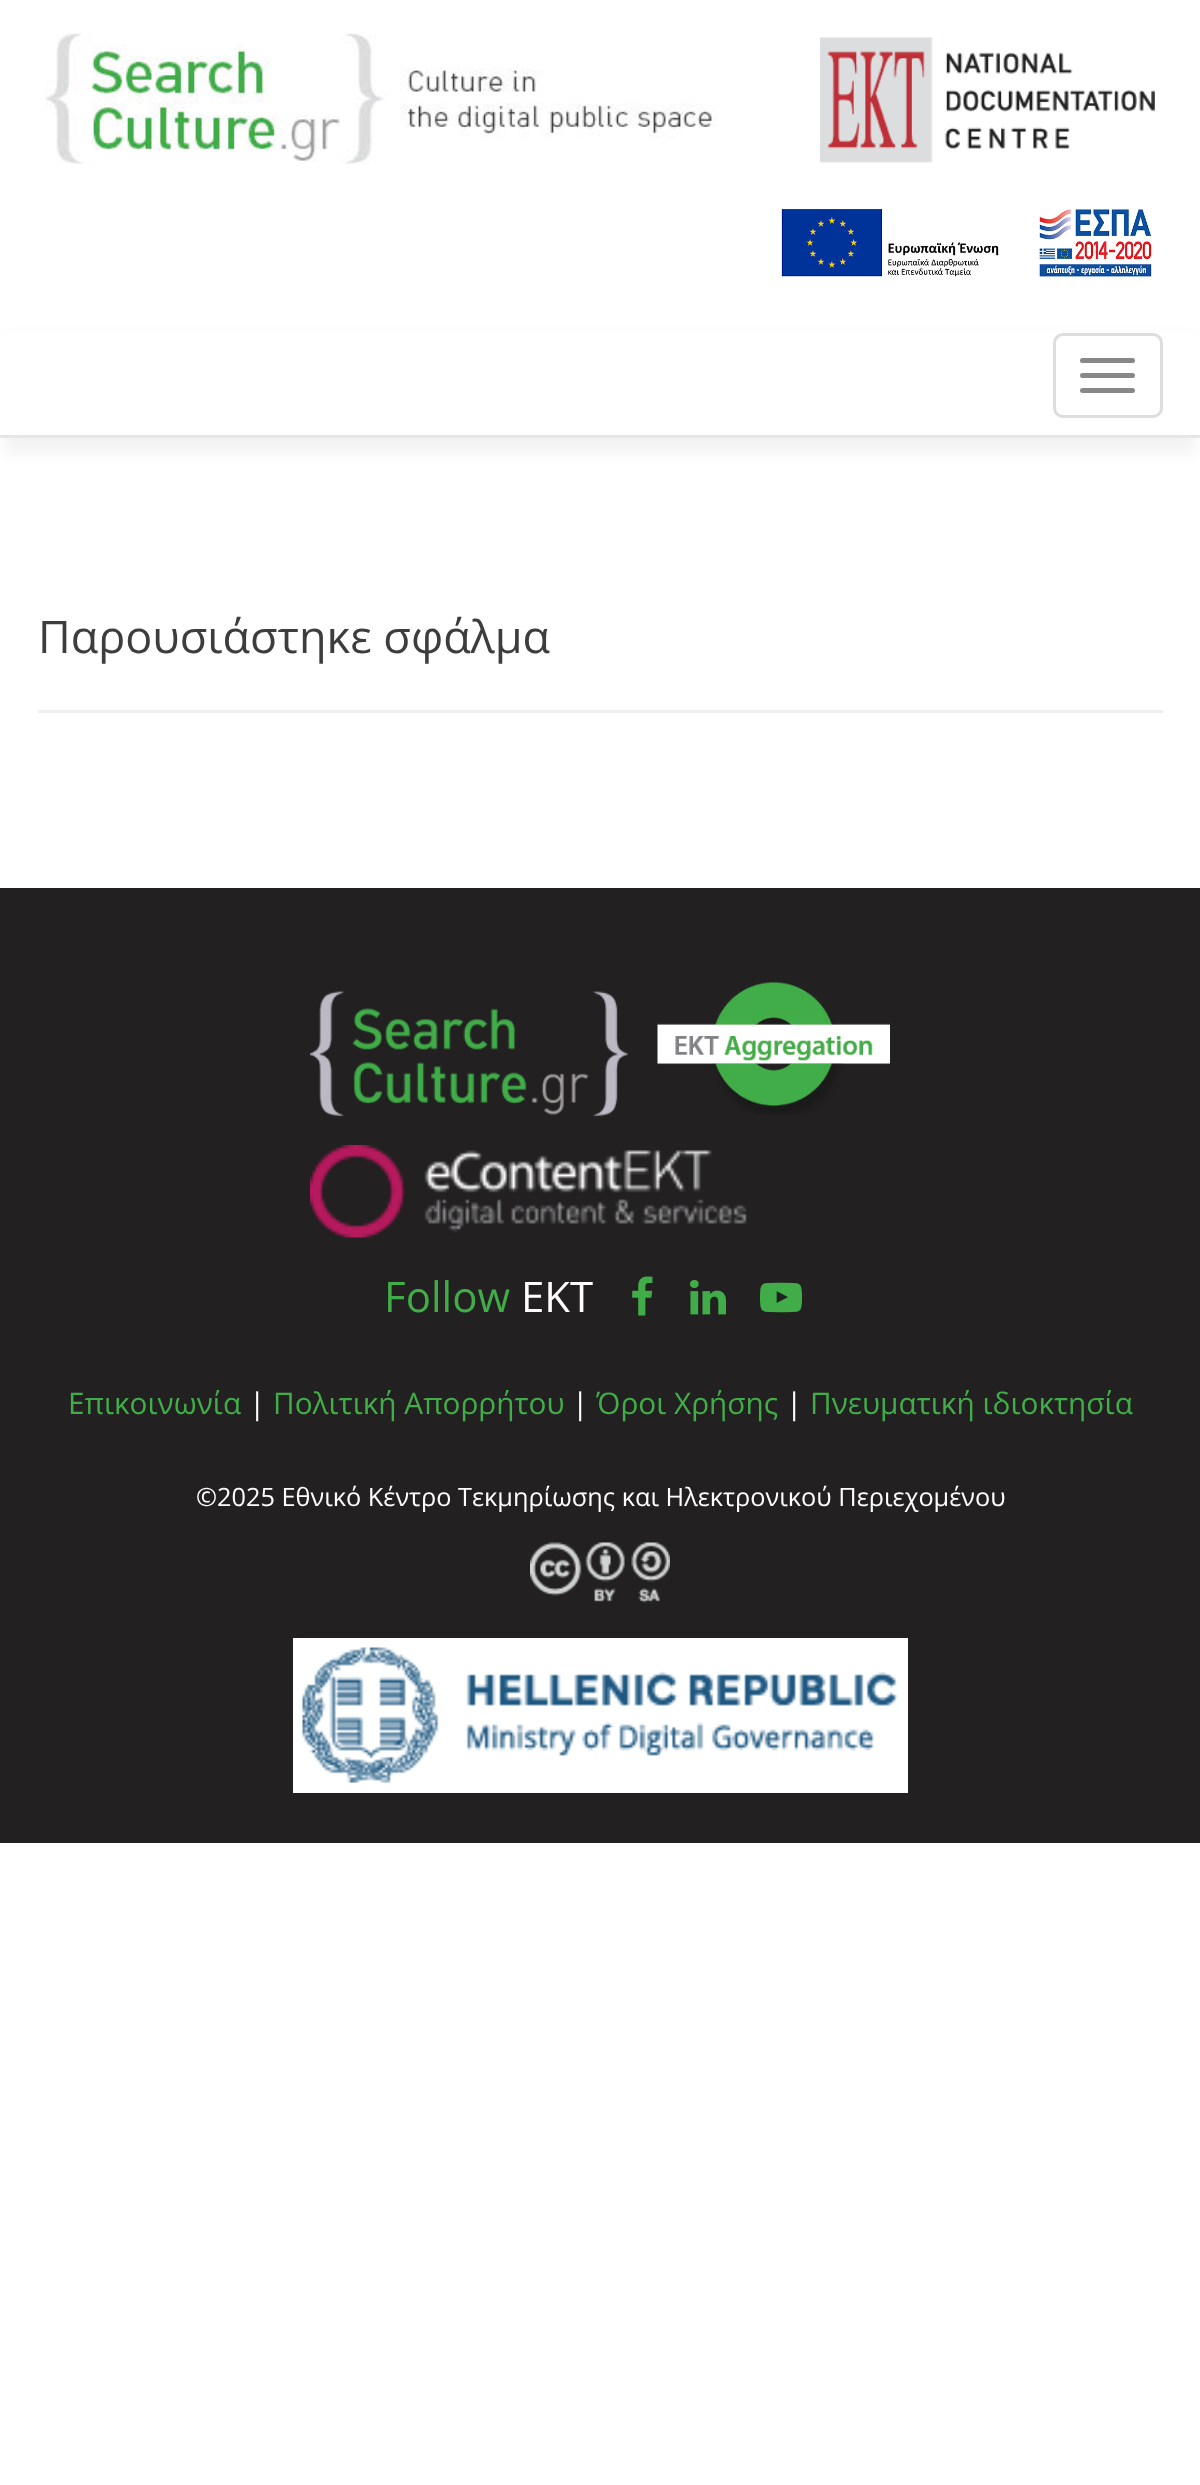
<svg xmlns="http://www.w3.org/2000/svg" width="1200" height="2485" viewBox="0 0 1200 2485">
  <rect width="100%" height="100%" fill="#fff"/>
  <image x="45" y="33" width="674" height="131" href="img/1.png"/>
  <image x="820" y="37" width="335" height="126" href="img/2.png"/>
  <image x="781" y="209" width="371" height="68" href="img/3.png"/>
  <path d="M5 338h1190v115H5z" fill="#0000000d" filter="blur(7.5px)"/>
  <path d="M0 332h1200v103H0z" fill="#fff"/>
  <path d="M0 435h1200v3H0z" fill="#e6e6e6"/>
  <rect x="1054.5" y="334.5" width="107" height="82" rx="8.5" fill="none" stroke="#ddd" stroke-width="3"/>
  <rect x="1080" y="358" width="55" height="5" rx="2.5" fill="#888"/>
  <rect x="1080" y="373" width="55" height="5" rx="2.5" fill="#888"/>
  <rect x="1080" y="388" width="55" height="5" rx="2.5" fill="#888"/>
  <path d="M38 710h1125v3H38z" fill="#eee"/>
  <path d="M0 888h1200v955H0z" fill="#222021"/>
  <image x="310" y="990" width="318" height="127" href="img/4.png"/>
  <image x="657" y="982" width="233" height="133" href="img/5.png"/>
  <image x="310" y="1145" width="437" height="93" href="img/6.png"/>
  <image x="632" y="1276" width="21" height="40" href="img/7.png"/>
  <image x="690" y="1280" width="36" height="35" href="img/8.png"/>
  <image x="760" y="1282" width="42" height="31" href="img/9.png"/>
  <image x="530" y="1542" width="140" height="61" href="img/10.png"/>
  <path d="M293 1638h615v155H293z" fill="#fff"/>
  <image x="302" y="1647" width="596" height="136" href="img/11.png"/>
  <text x="38" y="653" font-family="Open Sans" font-size="45" fill="#3d3d3d">Παρουσιάστηκε σφάλμα</text>
  <text x="384" y="1312" font-family="Open Sans" font-size="42" fill="#41ad49">Follow</text>
  <text x="521" y="1312" font-family="Open Sans" font-size="42" fill="#fff">EKT</text>
  <text x="68" y="1414" font-family="Open Sans" font-size="29.75" fill="#41ad49">Επικοινωνία</text>
  <text x="249" y="1414" font-family="Open Sans" font-size="29.75" fill="#fff">|</text>
  <text x="273" y="1414" font-family="Open Sans" font-size="29.75" fill="#41ad49">Πολιτική Απορρήτου</text>
  <text x="572" y="1414" font-family="Open Sans" font-size="29.75" fill="#fff">|</text>
  <text x="596" y="1414" font-family="Open Sans" font-size="29.75" fill="#41ad49">Όροι Χρήσης</text>
  <text x="786" y="1414" font-family="Open Sans" font-size="29.75" fill="#fff">|</text>
  <text x="810" y="1414" font-family="Open Sans" font-size="29.75" fill="#41ad49">Πνευματική ιδιοκτησία</text>
  <text x="196" y="1506" font-family="Open Sans" font-size="25.3" fill="#fff">©2025 Εθνικό Κέντρο Τεκμηρίωσης και Ηλεκτρονικού Περιεχομένου</text>
</svg>
